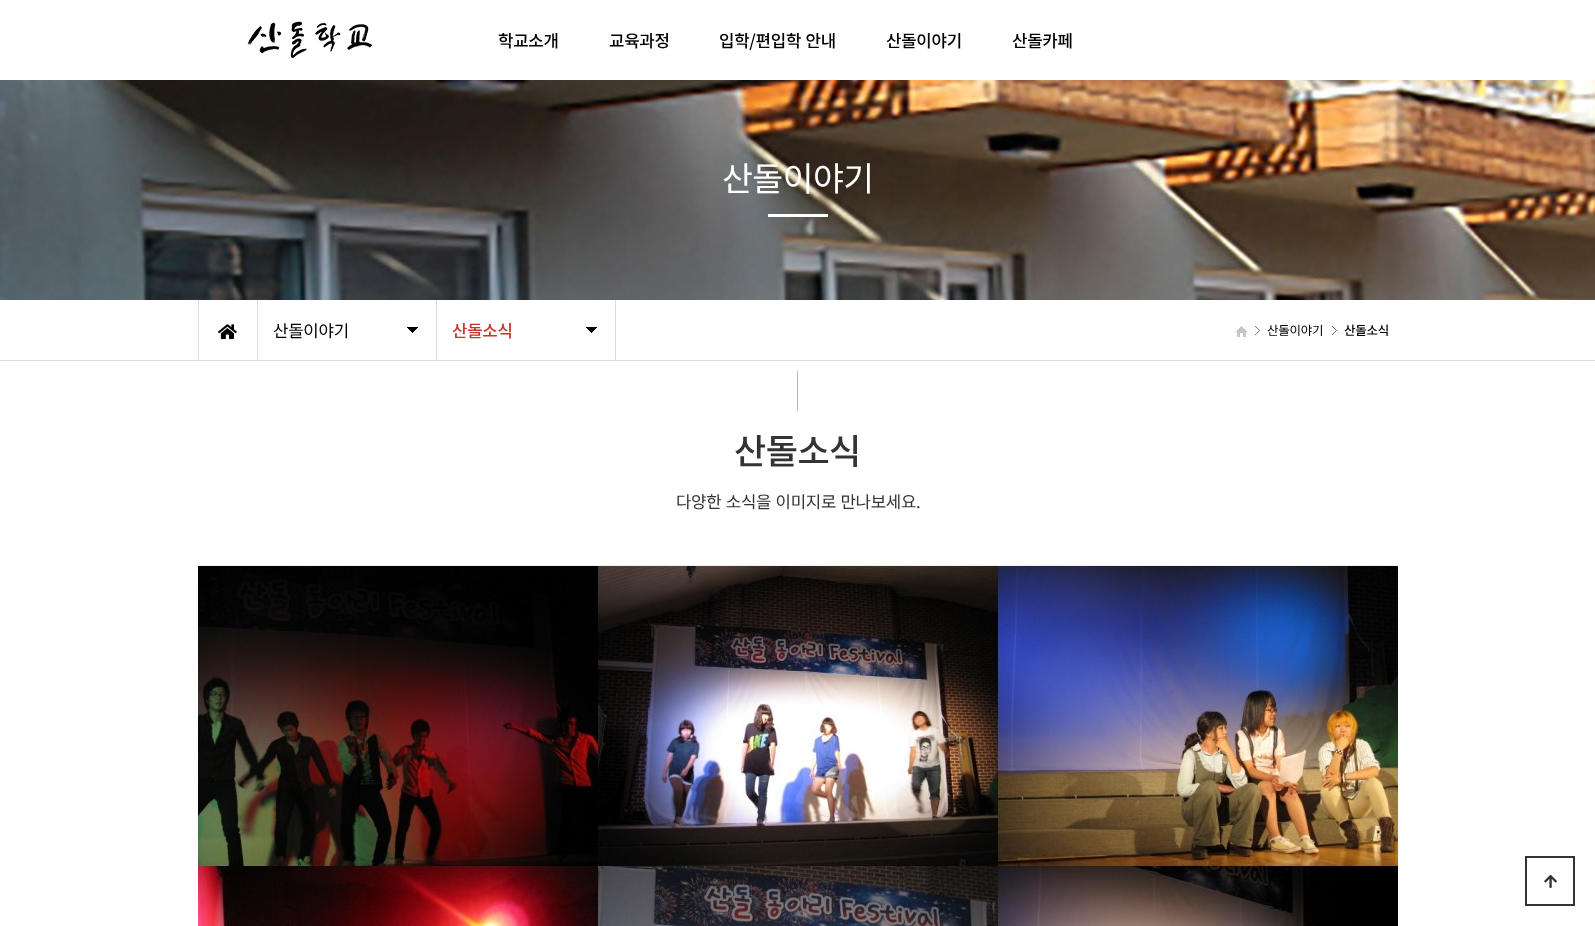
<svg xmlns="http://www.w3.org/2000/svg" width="1595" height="926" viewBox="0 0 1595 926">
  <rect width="100%" height="100%" fill="#fff"/>
  <image x="247" y="21" width="125" height="37" href="img/1.png"/>
  <image x="0" y="80" width="1595" height="220" href="img/2.png"/>
  <path d="M0 360h1595v1H0z" fill="#ddd"/>
  <path d="M257 300h1v60H257z" fill="#ddd"/>
  <path d="M198 300h1v60H198z" fill="#ddd"/>
  <image x="218" y="324" width="19" height="16" href="img/3.png"/>
  <path d="M436 300h1v60H436z" fill="#ddd"/>
  <image x="407" y="327" width="11" height="6" href="img/4.png"/>
  <path d="M615 300h1v60H615z" fill="#ddd"/>
  <image x="586" y="327" width="11" height="6" href="img/4.png"/>
  <path d="M768 214h60v3H768z" fill="#fff"/>
  <image x="1236" y="326" width="11" height="11" href="img/5.png"/>
  <image x="1255" y="326" width="5" height="9" href="img/6.png"/>
  <image x="1332" y="326" width="5" height="9" href="img/6.png"/>
  <path d="M797 371h1v40H797z" fill="#b6b6b6"/>
  <path d="M198 565h1200v1H198z" fill="#f1f1f1"/>
  <image x="198" y="566" width="1200" height="360" href="img/7.png"/>
  <path d="M1526 857h48v48H1526z" fill="none" stroke="#333" stroke-width="2"/>
  <image x="1544" y="874" width="13" height="14" href="img/8.png"/>
  <g font-family="Noto Sans KR" font-size="16.75" font-weight="500" letter-spacing="-0.25" fill="#000">
    <text x="498" y="47">학교소개</text>
    <text x="609" y="47">교육과정</text>
    <text x="719" y="47" word-spacing="1">입학/편입학 안내</text>
    <text x="886" y="47">산돌이야기</text>
    <text x="1012" y="47">산돌카페</text>
  </g>
  <text x="273" y="337" font-family="Noto Sans KR" font-size="16.75" letter-spacing="-0.25" fill="#000">산돌이야기</text>
  <text x="452" y="337" font-family="Noto Sans KR" font-size="16.75" font-weight="500" letter-spacing="-0.25" fill="#c53528">산돌소식</text>
  <text x="722" y="191" font-family="Noto Sans KR" font-size="33.5" letter-spacing="-0.5" fill="#fff">산돌이야기</text>
  <text x="1267" y="335" font-family="Noto Sans KR" font-size="12.5" letter-spacing="-0.25" fill="#000">산돌이야기</text>
  <text x="1344" y="335" font-family="Noto Sans KR" font-size="12.5" font-weight="500" letter-spacing="-0.25" fill="#000">산돌소식</text>
  <text x="734" y="464" font-family="Noto Sans KR" font-size="35" font-weight="500" letter-spacing="-0.5" fill="#333">산돌소식</text>
  <text x="676" y="508" word-spacing="1" font-family="Noto Sans KR" font-size="16.75" letter-spacing="-0.3" fill="#333">다양한 소식을 이미지로 만나보세요.</text>
</svg>
